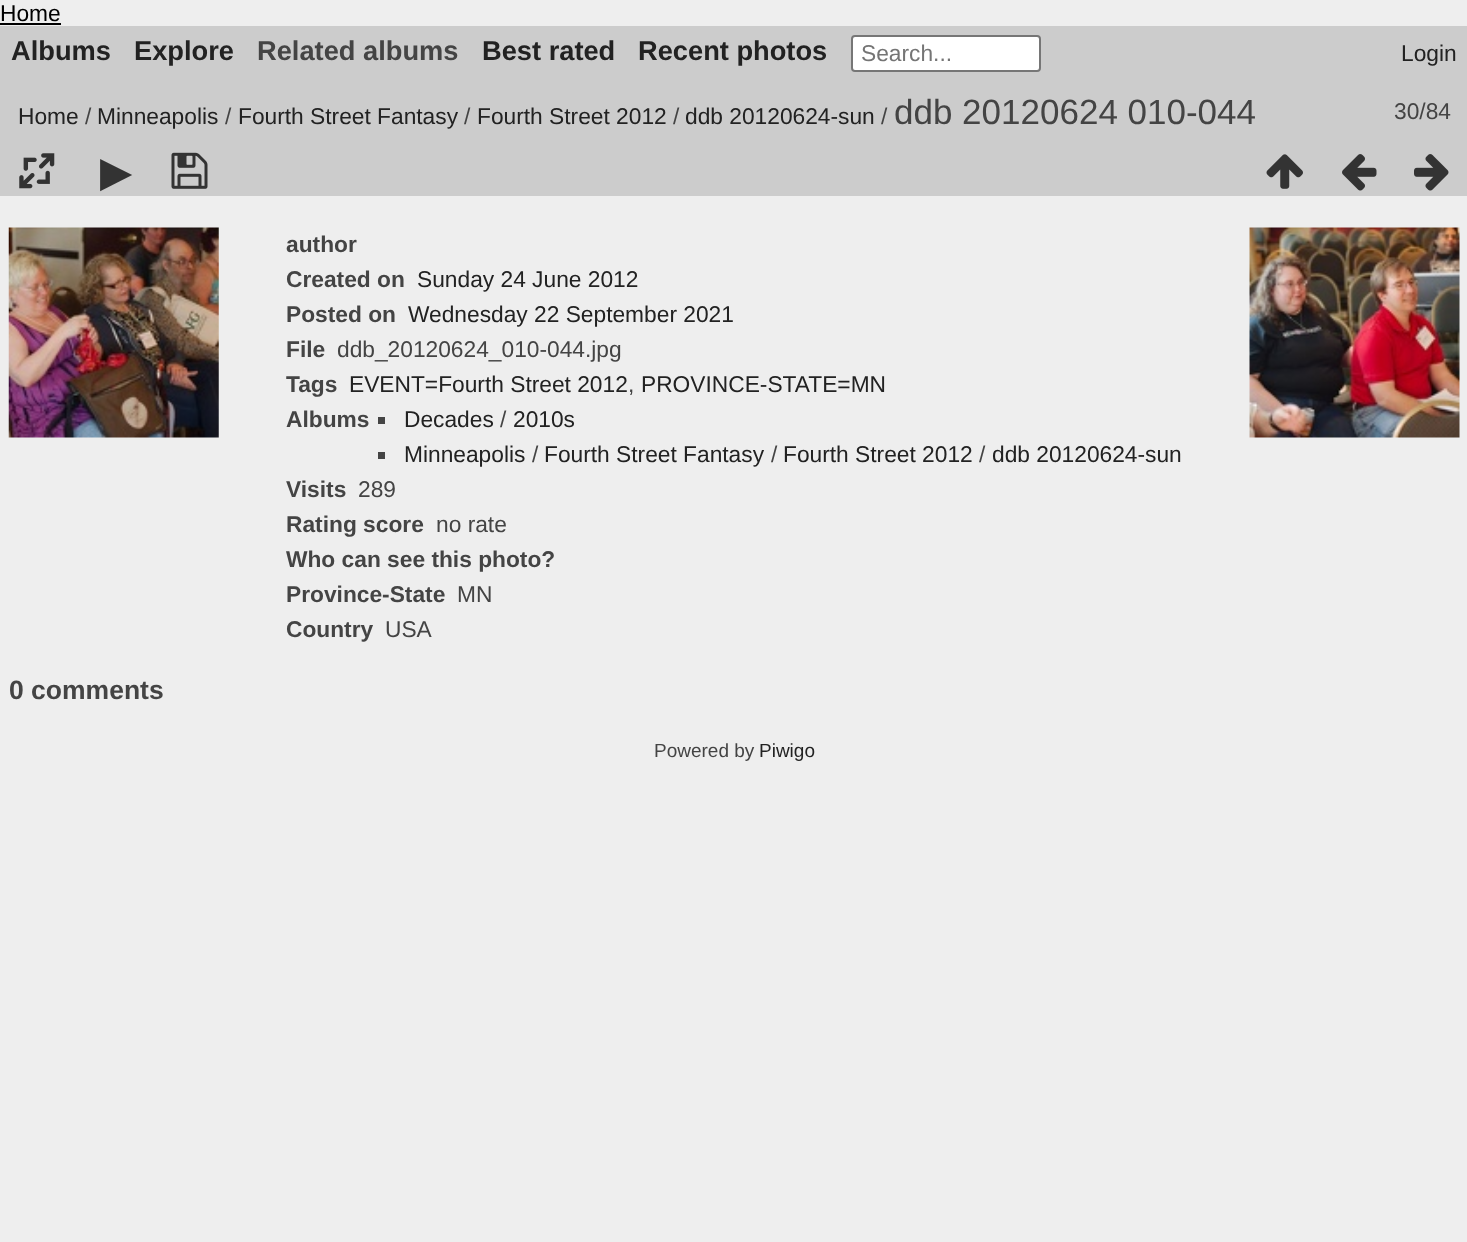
<svg xmlns="http://www.w3.org/2000/svg" width="1467" height="1242" viewBox="0 0 1467 1242">
  <rect width="100%" height="100%" fill="#eee"/>
  <path d="M0 23h61v2H0z" fill="#000"/>
  <path d="M0 26h1467v170H0z" fill="#ccc"/>
  <rect x="852" y="36" width="188" height="35" rx="3" fill="#fff" stroke="#767676" stroke-width="2"/>
  <image x="19" y="153" width="36" height="36" href="img/1.png"/>
  <image x="171" y="152" width="37" height="37" href="img/2.png"/>
  <image x="1266" y="154" width="37" height="35" href="img/3.png"/>
  <image x="1342" y="154" width="35" height="37" href="img/4.png"/>
  <image x="1414" y="154" width="35" height="37" href="img/5.png"/>
  <image x="8" y="227" width="211" height="211" href="img/6.png"/>
  <image x="1249" y="227" width="211" height="211" href="img/7.png"/>
  <path d="M378 417h7v7H378z" fill="#444"/>
  <path d="M378 452h7v7H378z" fill="#444"/>
  <text x="0" y="21" font-family="Liberation Sans" font-size="22.75" fill="#000">Home</text>
  <g font-family="Liberation Sans" font-size="27.25" font-weight="bold" fill="#222">
    <text x="11" y="60">Albums</text>
    <text x="134" y="60">Explore</text>
  </g>
  <text x="257" y="60" font-family="Liberation Sans" font-size="27.25" font-weight="bold" fill="#444">Related albums</text>
  <g font-family="Liberation Sans" font-size="27.25" font-weight="bold" fill="#222">
    <text x="482" y="60">Best rated</text>
    <text x="638" y="60">Recent photos</text>
  </g>
  <text x="861" y="61" font-family="Liberation Sans" font-size="22.75" fill="#757575">Search...</text>
  <g font-family="Liberation Sans" font-size="22.75" fill="#222">
    <text x="1401" y="61">Login</text>
    <text x="18" y="124">Home</text>
  </g>
  <text x="85" y="124" font-family="Liberation Sans" font-size="22.75" fill="#444">/</text>
  <text x="97" y="124" font-family="Liberation Sans" font-size="22.75" fill="#222">Minneapolis</text>
  <text x="225" y="124" font-family="Liberation Sans" font-size="22.75" fill="#444">/</text>
  <text x="238" y="124" font-family="Liberation Sans" font-size="22.75" fill="#222">Fourth Street Fantasy</text>
  <text x="464" y="124" font-family="Liberation Sans" font-size="22.75" fill="#444">/</text>
  <text x="477" y="124" font-family="Liberation Sans" font-size="22.75" fill="#222">Fourth Street 2012</text>
  <text x="673" y="124" font-family="Liberation Sans" font-size="22.75" fill="#444">/</text>
  <text x="685" y="124" font-family="Liberation Sans" font-size="22.75" fill="#222">ddb 20120624-sun</text>
  <text x="881" y="124" font-family="Liberation Sans" font-size="22.75" fill="#444">/</text>
  <text x="894" y="124" font-family="Liberation Sans" font-size="35" fill="#444">ddb 20120624 010-044</text>
  <text x="1394" y="119" font-family="Liberation Sans" font-size="22.75" fill="#444">30/84</text>
  <text x="100" y="186" font-family="DejaVu Sans" font-size="42" fill="#333">▶</text>
  <g font-family="Liberation Sans" font-size="22.75" font-weight="bold" fill="#444">
    <text x="286" y="252">author</text>
    <text x="286" y="287">Created on</text>
  </g>
  <text x="417" y="287" font-family="Liberation Sans" font-size="22.75" fill="#222">Sunday 24 June 2012</text>
  <text x="286" y="322" font-family="Liberation Sans" font-size="22.75" font-weight="bold" fill="#444">Posted on</text>
  <text x="408" y="322" font-family="Liberation Sans" font-size="22.75" fill="#222">Wednesday 22 September 2021</text>
  <text x="286" y="357" font-family="Liberation Sans" font-size="22.75" font-weight="bold" fill="#444">File</text>
  <text x="337" y="357" font-family="Liberation Sans" font-size="22.75" fill="#444">ddb_20120624_010-044.jpg</text>
  <text x="286" y="392" font-family="Liberation Sans" font-size="22.75" font-weight="bold" fill="#444">Tags</text>
  <text x="349" y="392" font-family="Liberation Sans" font-size="22.75" fill="#222">EVENT=Fourth Street 2012</text>
  <text x="628" y="392" font-family="Liberation Sans" font-size="22.75" fill="#444">,</text>
  <text x="641" y="392" font-family="Liberation Sans" font-size="22.75" fill="#222">PROVINCE-STATE=MN</text>
  <text x="286" y="427" font-family="Liberation Sans" font-size="22.75" font-weight="bold" fill="#444">Albums</text>
  <text x="404" y="427" font-family="Liberation Sans" font-size="22.75" fill="#222">Decades</text>
  <text x="500" y="427" font-family="Liberation Sans" font-size="22.75" fill="#444">/</text>
  <g font-family="Liberation Sans" font-size="22.75" fill="#222">
    <text x="513" y="427">2010s</text>
    <text x="404" y="462">Minneapolis</text>
  </g>
  <text x="532" y="462" font-family="Liberation Sans" font-size="22.75" fill="#444">/</text>
  <text x="544" y="462" font-family="Liberation Sans" font-size="22.75" fill="#222">Fourth Street Fantasy</text>
  <text x="771" y="462" font-family="Liberation Sans" font-size="22.75" fill="#444">/</text>
  <text x="783" y="462" font-family="Liberation Sans" font-size="22.75" fill="#222">Fourth Street 2012</text>
  <text x="979" y="462" font-family="Liberation Sans" font-size="22.75" fill="#444">/</text>
  <text x="992" y="462" font-family="Liberation Sans" font-size="22.75" fill="#222">ddb 20120624-sun</text>
  <text x="286" y="497" font-family="Liberation Sans" font-size="22.75" font-weight="bold" fill="#444">Visits</text>
  <text x="358" y="497" font-family="Liberation Sans" font-size="22.75" fill="#444">289</text>
  <text x="286" y="532" font-family="Liberation Sans" font-size="22.75" font-weight="bold" fill="#444">Rating score</text>
  <text x="436" y="532" font-family="Liberation Sans" font-size="22.75" fill="#444">no rate</text>
  <g font-family="Liberation Sans" font-size="22.75" font-weight="bold" fill="#444">
    <text x="286" y="567">Who can see this photo?</text>
    <text x="286" y="602">Province-State</text>
  </g>
  <text x="457" y="602" font-family="Liberation Sans" font-size="22.75" fill="#444">MN</text>
  <text x="286" y="637" font-family="Liberation Sans" font-size="22.75" font-weight="bold" fill="#444">Country</text>
  <text x="385" y="637" font-family="Liberation Sans" font-size="22.75" fill="#444">USA</text>
  <text x="9" y="699" font-family="Liberation Sans" font-size="26.5" font-weight="bold" fill="#444">0 comments</text>
  <text x="654" y="757" font-family="Liberation Sans" font-size="19" fill="#444">Powered by</text>
  <text x="759" y="757" font-family="Liberation Sans" font-size="19" fill="#222">Piwigo</text>
</svg>
